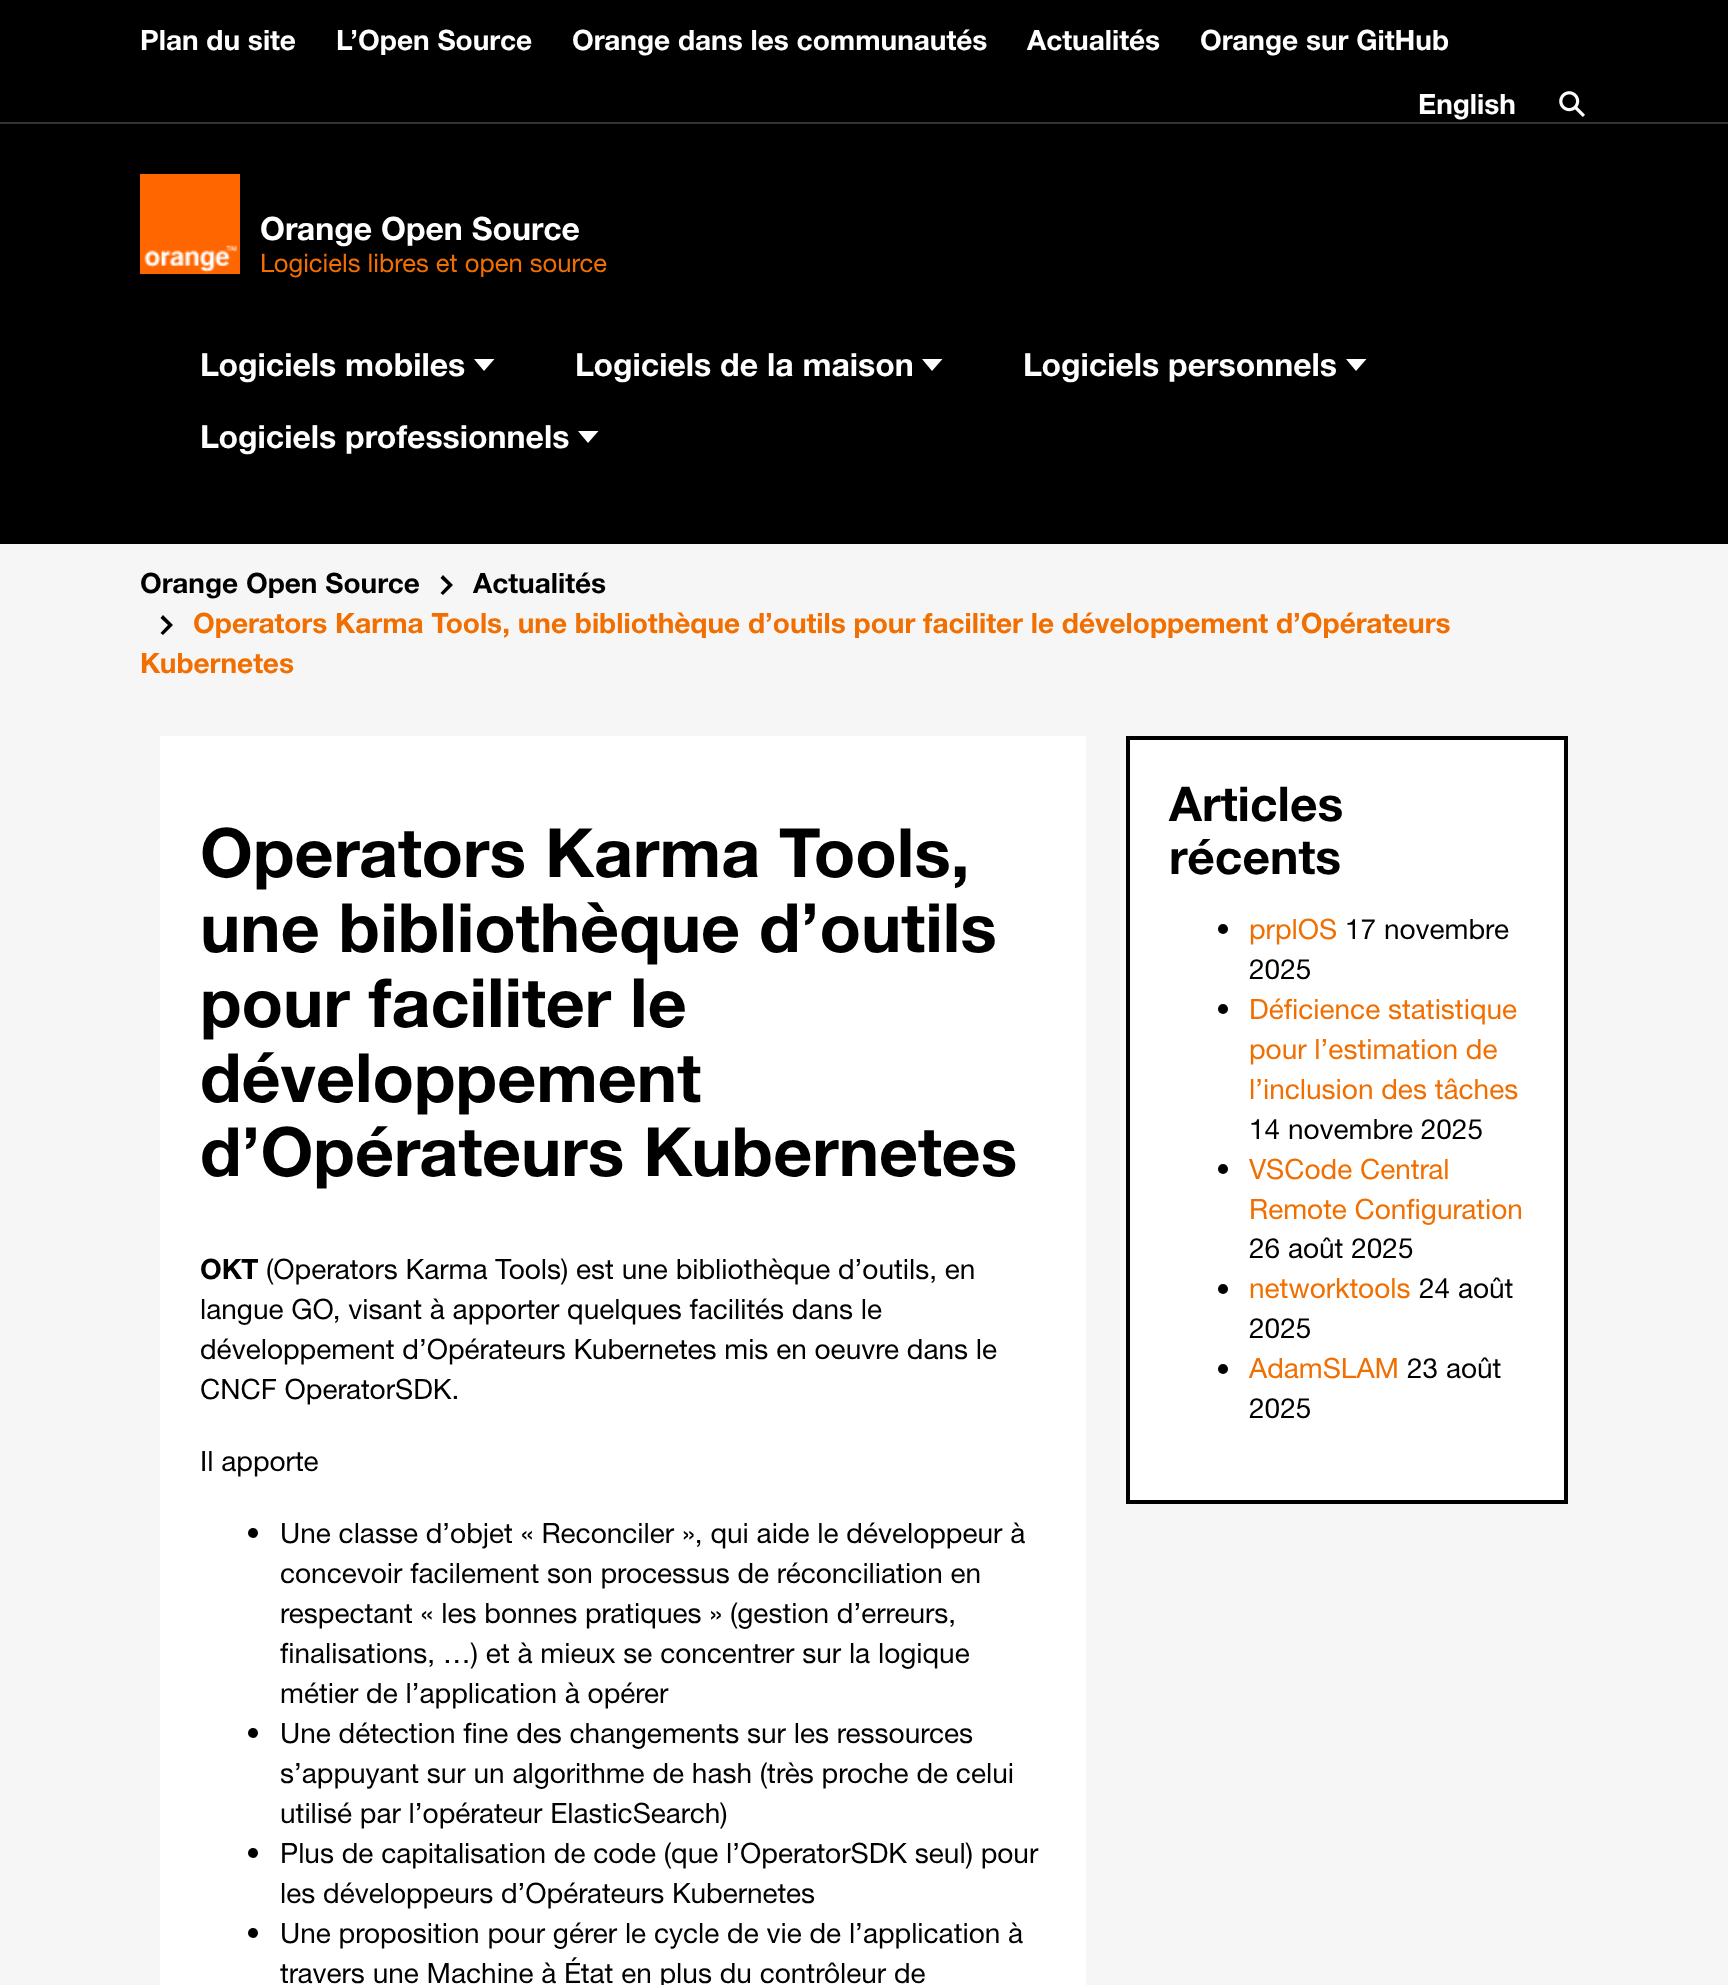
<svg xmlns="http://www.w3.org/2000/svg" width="1728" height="1985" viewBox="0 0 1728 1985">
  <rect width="100%" height="100%" fill="#f6f6f6"/>
  <path d="M0 0h1728v122H0z" fill="#000"/>
  <path d="M0 122h1728v2H0z" fill="#333"/>
  <image x="1559" y="91" width="26" height="26" href="img/1.png"/>
  <path d="M0 124h1728v420H0z" fill="#000"/>
  <image x="140" y="174" width="100" height="100" href="img/2.png"/>
  <path d="M474 359L484 371L494.5 359Z" fill="#fff"/>
  <path d="M922 359L932 371L942.5 359Z" fill="#fff"/>
  <path d="M1346 359L1356 371L1366.5 359Z" fill="#fff"/>
  <path d="M578 431L588 443L598.5 431Z" fill="#fff"/>
  <path d="M443 575L440.5 578L448 585L440.5 593L443 595L453 585Z" fill="#000"/>
  <path d="M163 615L160.5 618L168 625L160.5 633L163 635L173 625Z" fill="#000"/>
  <path d="M160 736h926v1249H160z" fill="#fff"/>
  <circle cx="253" cy="1533" r="5" fill="#000"/>
  <circle cx="253" cy="1733" r="5" fill="#000"/>
  <circle cx="253" cy="1853" r="5" fill="#000"/>
  <circle cx="253" cy="1933" r="5" fill="#000"/>
  <path d="M1128 738h438v764H1128z" fill="#fff" stroke="#000" stroke-width="4"/>
  <circle cx="1223" cy="929" r="5" fill="#000"/>
  <circle cx="1223" cy="1009" r="5" fill="#000"/>
  <circle cx="1223" cy="1169" r="5" fill="#000"/>
  <circle cx="1223" cy="1289" r="5" fill="#000"/>
  <circle cx="1223" cy="1369" r="5" fill="#000"/>
  <g font-family="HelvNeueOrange" font-size="28" font-weight="bold" fill="#fff">
    <text x="140" y="50">Plan du site</text>
    <text x="336" y="50">L’Open Source</text>
    <text x="572" y="50">Orange dans les communautés</text>
    <text x="1027" y="50">Actualités</text>
    <text x="1200" y="50">Orange sur GitHub</text>
    <text x="1418" y="114">English</text>
  </g>
  <text x="260" y="240" font-family="HelvNeueOrange" font-size="32" font-weight="bold" fill="#fff">Orange Open Source</text>
  <text x="260" y="272" font-family="HelvNeueOrange" font-size="25.6" fill="#f16e00">Logiciels libres et open source</text>
  <g font-family="HelvNeueOrange" font-size="32" font-weight="bold" fill="#fff">
    <text x="200" y="376">Logiciels mobiles</text>
    <text x="575" y="376">Logiciels de la maison</text>
    <text x="1023" y="376">Logiciels personnels</text>
    <text x="200" y="448">Logiciels professionnels</text>
  </g>
  <g font-family="HelvNeueOrange" font-size="28" font-weight="bold" fill="#000">
    <text x="140" y="593">Orange Open Source</text>
    <text x="473" y="593">Actualités</text>
  </g>
  <g font-family="HelvNeueOrange" font-size="28" font-weight="bold" fill="#f16e00">
    <text x="193" y="633">Operators Karma Tools, une bibliothèque d’outils pour faciliter le développement d’Opérateurs</text>
    <text x="140" y="673">Kubernetes</text>
  </g>
  <g font-family="HelvNeueOrange" font-size="68" font-weight="bold" fill="#000">
    <text x="200" y="877">Operators Karma Tools,</text>
    <text x="200" y="952">une bibliothèque d’outils</text>
    <text x="200" y="1027">pour faciliter le</text>
    <text x="200" y="1102">développement</text>
    <text x="200" y="1176">d’Opérateurs Kubernetes</text>
  </g>
  <text x="200" y="1279" font-family="HelvNeueOrange" font-size="28" font-weight="bold" fill="#000">OKT</text>
  <g font-family="HelvNeueOrange" font-size="28" fill="#000">
    <text x="266" y="1279">(Operators Karma Tools) est une bibliothèque d’outils, en</text>
    <text x="200" y="1319">langue GO, visant à apporter quelques facilités dans le</text>
    <text x="200" y="1359">développement d’Opérateurs Kubernetes mis en oeuvre dans le</text>
    <text x="200" y="1399">CNCF OperatorSDK.</text>
    <text x="200" y="1471">Il apporte</text>
    <text x="280" y="1543">Une classe d’objet « Reconciler », qui aide le développeur à</text>
    <text x="280" y="1583">concevoir facilement son processus de réconciliation en</text>
    <text x="280" y="1623">respectant « les bonnes pratiques » (gestion d’erreurs,</text>
    <text x="280" y="1663">finalisations, …) et à mieux se concentrer sur la logique</text>
    <text x="280" y="1703">métier de l’application à opérer</text>
    <text x="280" y="1743">Une détection fine des changements sur les ressources</text>
    <text x="280" y="1783">s’appuyant sur un algorithme de hash (très proche de celui</text>
    <text x="280" y="1823">utilisé par l’opérateur ElasticSearch)</text>
    <text x="280" y="1863">Plus de capitalisation de code (que l’OperatorSDK seul) pour</text>
    <text x="280" y="1903">les développeurs d’Opérateurs Kubernetes</text>
    <text x="280" y="1943">Une proposition pour gérer le cycle de vie de l’application à</text>
    <text x="280" y="1983">travers une Machine à État en plus du contrôleur de</text>
  </g>
  <g font-family="HelvNeueOrange" font-size="48" font-weight="bold" fill="#000">
    <text x="1169" y="821">Articles</text>
    <text x="1169" y="874">récents</text>
  </g>
  <text x="1249" y="939" font-family="HelvNeueOrange" font-size="28" fill="#f16e00">prplOS</text>
  <g font-family="HelvNeueOrange" font-size="28" fill="#000">
    <text x="1345" y="939">17 novembre</text>
    <text x="1249" y="979">2025</text>
  </g>
  <g font-family="HelvNeueOrange" font-size="28" fill="#f16e00">
    <text x="1249" y="1019">Déficience statistique</text>
    <text x="1249" y="1059">pour l’estimation de</text>
    <text x="1249" y="1099">l’inclusion des tâches</text>
  </g>
  <text x="1249" y="1139" font-family="HelvNeueOrange" font-size="28" fill="#000">14 novembre 2025</text>
  <g font-family="HelvNeueOrange" font-size="28" fill="#f16e00">
    <text x="1249" y="1179">VSCode Central</text>
    <text x="1249" y="1219">Remote Configuration</text>
  </g>
  <text x="1249" y="1258" font-family="HelvNeueOrange" font-size="28" fill="#000">26 août 2025</text>
  <text x="1249" y="1298" font-family="HelvNeueOrange" font-size="28" fill="#f16e00">networktools</text>
  <g font-family="HelvNeueOrange" font-size="28" fill="#000">
    <text x="1419" y="1298">24 août</text>
    <text x="1249" y="1338">2025</text>
  </g>
  <text x="1249" y="1378" font-family="HelvNeueOrange" font-size="28" fill="#f16e00">AdamSLAM</text>
  <g font-family="HelvNeueOrange" font-size="28" fill="#000">
    <text x="1407" y="1378">23 août</text>
    <text x="1249" y="1418">2025</text>
  </g>
</svg>
